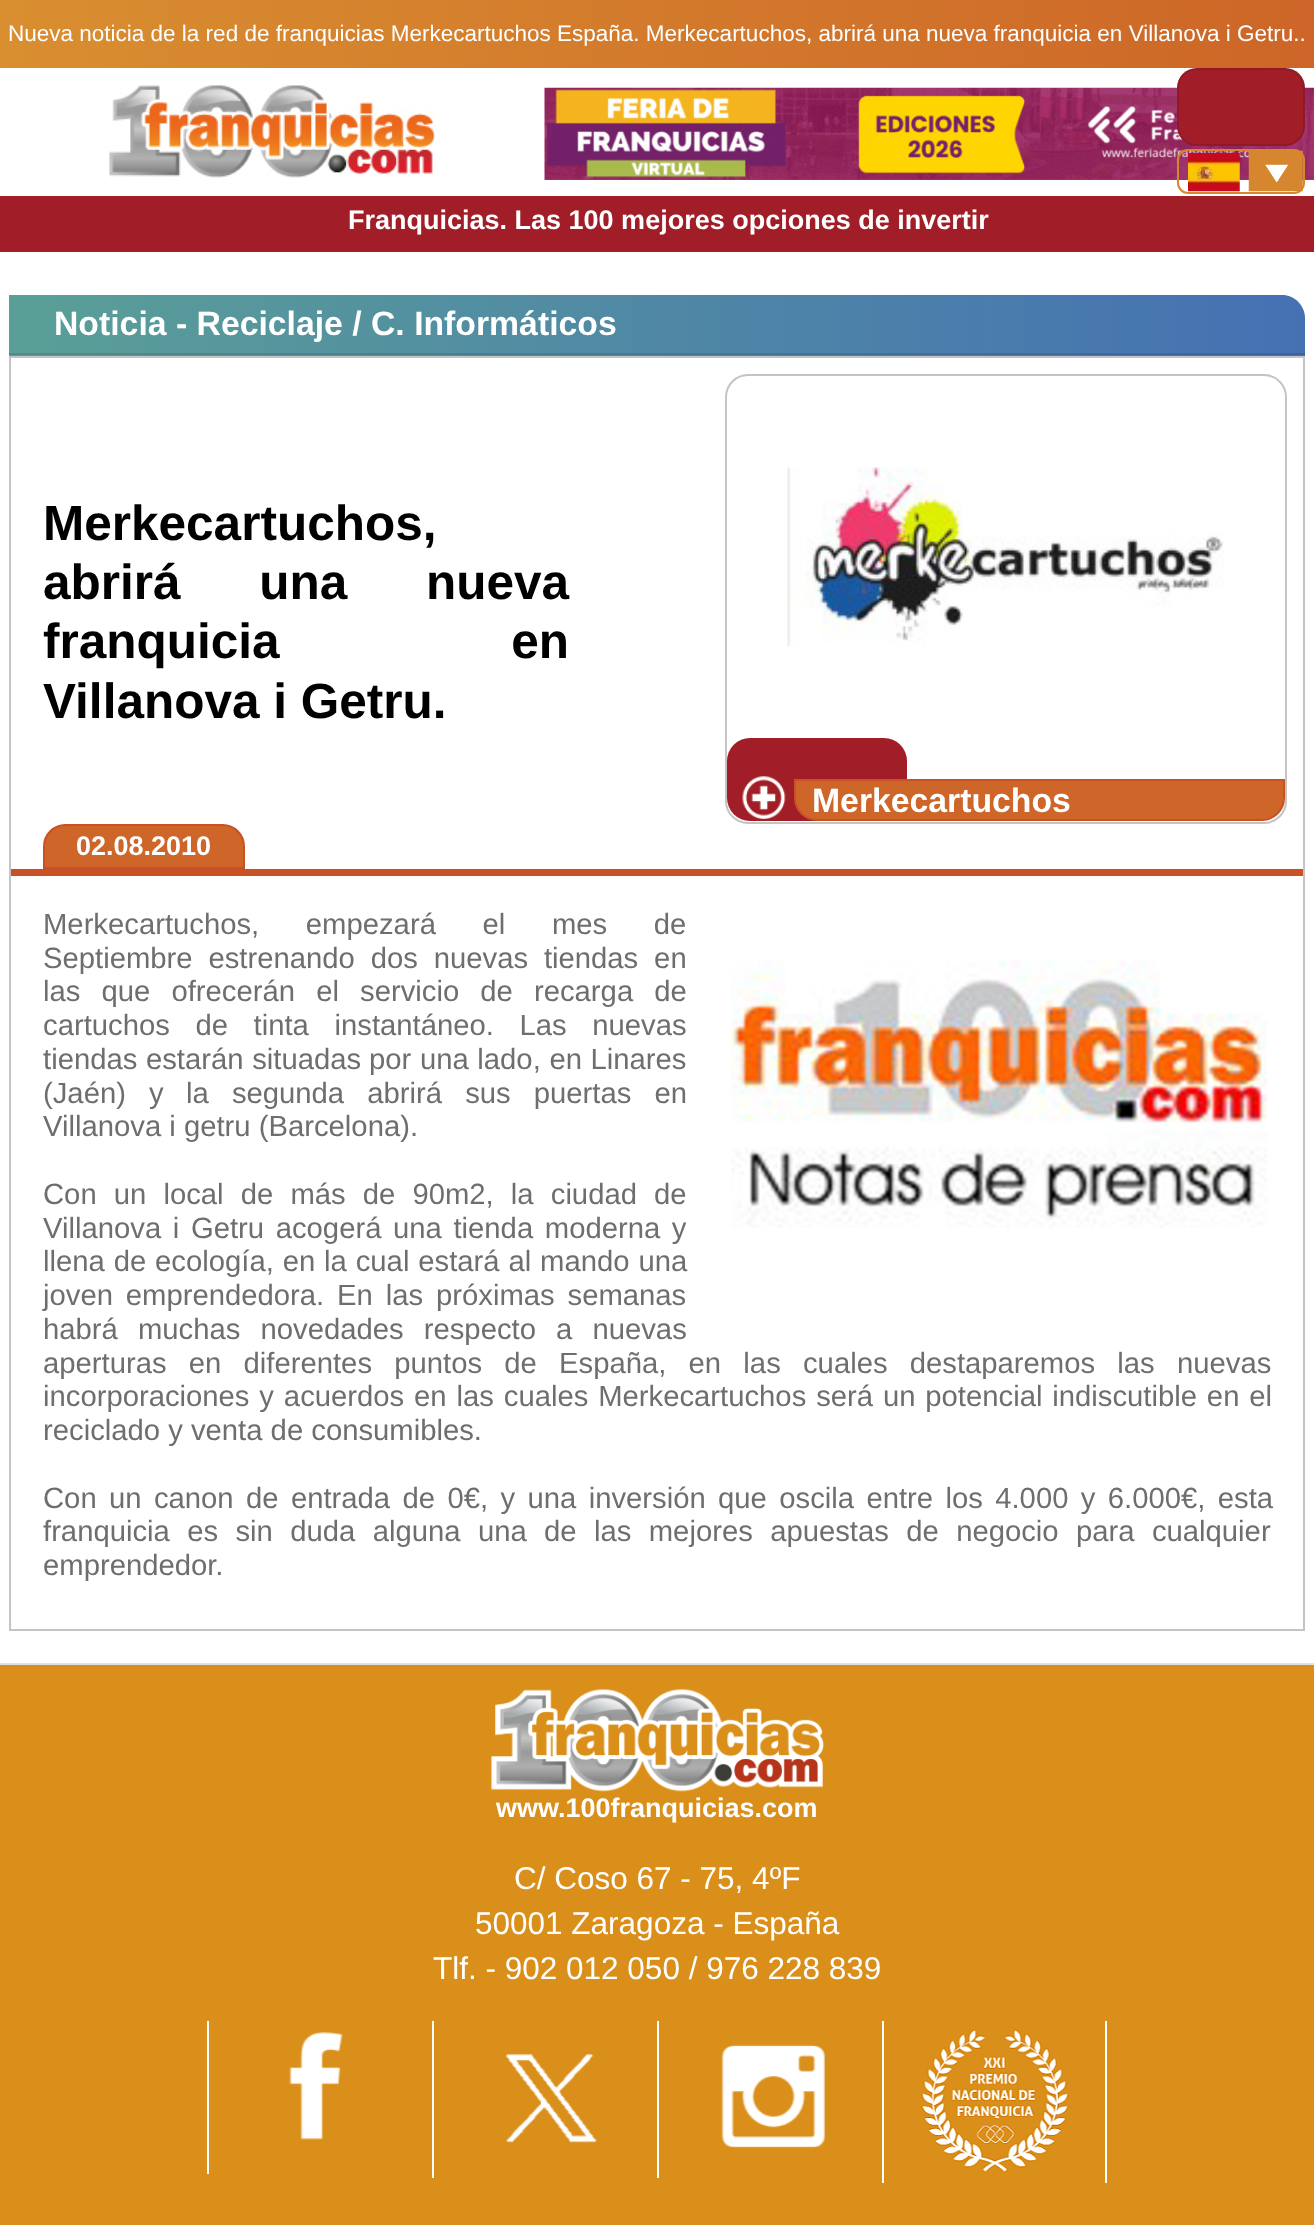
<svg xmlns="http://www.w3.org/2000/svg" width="1314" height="2225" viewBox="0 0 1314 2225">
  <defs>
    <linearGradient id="g1" gradientUnits="userSpaceOnUse" x1="0" y1="34" x2="1314" y2="34"><stop offset="0" stop-color="#d98e30"/><stop offset="1" stop-color="#cd6628"/></linearGradient>
    <linearGradient id="g2" gradientUnits="userSpaceOnUse" x1="1305" y1="324" x2="9" y2="324"><stop offset="0" stop-color="#4571b3"/><stop offset="1" stop-color="#5a9f97"/></linearGradient>
    <linearGradient id="g3" gradientUnits="userSpaceOnUse" x1="1305" y1="324" x2="9" y2="324"><stop offset="0" stop-color="#3d639e"/><stop offset="1" stop-color="#4f8c85"/></linearGradient>
  </defs>
  <rect width="100%" height="100%" fill="#fff"/>
  <path d="M0 0h1314v68H0z" fill="url(#g1)"/>
  <image x="109" y="85" width="327" height="93" href="img/1.png"/>
  <image x="544" y="87" width="770" height="93" href="img/4.png"/>
  <rect x="1177" y="68" width="128" height="78" rx="20" fill="#a11e28"/>
  <rect x="1178" y="69" width="126" height="76" rx="19" fill="none" stroke="#0000001a" stroke-width="2"/>
  <rect x="1178" y="150" width="126" height="43" rx="10" fill="none" stroke="#d6862e" stroke-width="2"/>
  <image x="1188" y="153" width="52" height="39" href="img/2.png"/>
  <image x="1248" y="150" width="55" height="42" href="img/3.png"/>
  <path d="M0 196h1314v56H0z" fill="#a11e28"/>
  <path d="M9 295H1282C1294.5 295 1305 305.5 1305 318V356H9Z" fill="url(#g2)"/>
  <path d="M9 353h1296v2H9z" fill="url(#g3)"/>
  <path d="M10 357h1294v1273H10z" fill="none" stroke="#c4c4c4" stroke-width="2"/>
  <rect x="726" y="375" width="560" height="448" rx="22" fill="none" stroke="#c4c4c4" stroke-width="2"/>
  <image x="787" y="467" width="437" height="180" href="img/5.png"/>
  <rect x="727" y="738" width="180" height="83" rx="23" fill="#a11e28"/>
  <image x="742" y="776" width="44" height="43" href="img/6.png"/>
  <path d="M795 780H1284V798C1284 810 1274 820 1262 820H817C805 820 795 810 795 798Z" fill="#cd6628" stroke="#ca5026" stroke-width="2"/>
  <path d="M11 869h1292v7H11z" fill="#ca5026"/>
  <path d="M65.5 825H222.5C234.5 825 244 834.5 244 846.5V868H44V846.5C44 834.5 53.5 825 65.5 825Z" fill="#cd6628" stroke="#ca5026" stroke-width="2"/>
  <image x="731" y="960" width="537" height="268" href="img/7.png"/>
  <path d="M0 1665h1314v560H0z" fill="#db8f1b"/>
  <path d="M0 1663h1314v2H0z" fill="#dee2e6"/>
  <image x="491" y="1688" width="333" height="104" href="img/8.png"/>
  <path d="M207 2021h2v153H207z" fill="#fff"/>
  <image x="289" y="2032" width="54" height="108" href="img/9.png"/>
  <path d="M432 2021h2v157H432z" fill="#fff"/>
  <image x="505" y="2054" width="92" height="89" href="img/10.png"/>
  <path d="M657 2021h2v157H657z" fill="#fff"/>
  <image x="721" y="2044" width="104" height="104" href="img/11.png"/>
  <path d="M1105 2021h2v162H1105z" fill="#fff"/>
  <path d="M882 2021h2v162H882z" fill="#fff"/>
  <image x="921" y="2029" width="148" height="144" href="img/12.png"/>
  <text x="8" y="41" font-family="Liberation Sans" font-size="22.5" fill="#fff">Nueva noticia de la red de franquicias Merkecartuchos España. Merkecartuchos, abrirá una nueva franquicia en Villanova i Getru..</text>
  <text x="348" y="229" font-family="Liberation Sans" font-size="27" font-weight="bold" fill="#fff">Franquicias. Las 100 mejores opciones de invertir</text>
  <text x="54" y="335" font-family="Liberation Sans" font-size="33.75" font-weight="bold" fill="#fff">Noticia - Reciclaje / C. Informáticos</text>
  <g font-family="Liberation Sans" font-size="49.5" font-weight="bold" fill="#000">
    <text x="43" y="540">Merkecartuchos,</text>
    <text x="43" y="599" word-spacing="65">abrirá una nueva</text>
    <text x="43" y="658" word-spacing="218">franquicia en</text>
    <text x="43" y="718">Villanova i Getru.</text>
  </g>
  <text x="812" y="812" font-family="Liberation Sans" font-size="33.75" font-weight="bold" fill="#fff">Merkecartuchos</text>
  <text x="76" y="855" font-family="Liberation Sans" font-size="27" font-weight="bold" fill="#fff">02.08.2010</text>
  <g font-family="Liberation Sans" font-size="29.25" fill="#6f6e6e">
    <text x="43" y="934" word-spacing="38.5">Merkecartuchos, empezará el mes de</text>
    <text x="43" y="968" word-spacing="7.75">Septiembre estrenando dos nuevas tiendas en</text>
    <text x="43" y="1001" word-spacing="13">las que ofrecerán el servicio de recarga de</text>
    <text x="43" y="1035" word-spacing="17.5">cartuchos de tinta instantáneo. Las nuevas</text>
    <text x="43" y="1069" word-spacing="0.5">tiendas estarán situadas</text>
    <text x="369" y="1069" word-spacing="0.5">por una lado, en Linares</text>
    <text x="43" y="1103" word-spacing="15">(Jaén) y</text>
    <text x="186" y="1103" word-spacing="15">la segunda abrirá sus puertas en</text>
    <text x="43" y="1136">Villanova i getru (Barcelona).</text>
    <text x="43" y="1204" word-spacing="9">Con un local de más de 90m2, la ciudad de</text>
    <text x="43" y="1238" word-spacing="3.5">Villanova i Getru acogerá una tienda moderna y</text>
    <text x="43" y="1271" word-spacing="0.75">llena de ecología, en la cual estará al mando una</text>
    <text x="43" y="1305" word-spacing="4.75">joven emprendedora. En las próximas semanas</text>
    <text x="43" y="1339" word-spacing="12">habrá muchas novedades respecto a nuevas</text>
    <text x="43" y="1373" word-spacing="14.1">aperturas en diferentes puntos de España, en las cuales destaparemos las nuevas</text>
    <text x="43" y="1406" word-spacing="1.75">incorporaciones y acuerdos en las cuales Merkecartuchos será un potencial indiscutible en el</text>
    <text x="43" y="1440">reciclado y venta de consumibles.</text>
    <text x="43" y="1508" word-spacing="4.25">Con un canon de entrada de 0€, y una inversión que oscila entre los 4.000 y 6.000€, esta</text>
    <text x="43" y="1541" word-spacing="9.25">franquicia es sin duda alguna una de las mejores apuestas de negocio para cualquier</text>
    <text x="43" y="1575">emprendedor.</text>
  </g>
  <text x="496" y="1817" font-family="Liberation Sans" font-size="27" font-weight="bold" fill="#fff">www.100franquicias.com</text>
  <g font-family="Liberation Sans" font-size="31.5" fill="#fff">
    <text x="514" y="1889">C/ Coso 67 - 75, 4ºF</text>
    <text x="475" y="1934">50001 Zaragoza - España</text>
    <text x="433" y="1979">Tlf. - 902 012 050 / 976 228 839</text>
  </g>
</svg>
